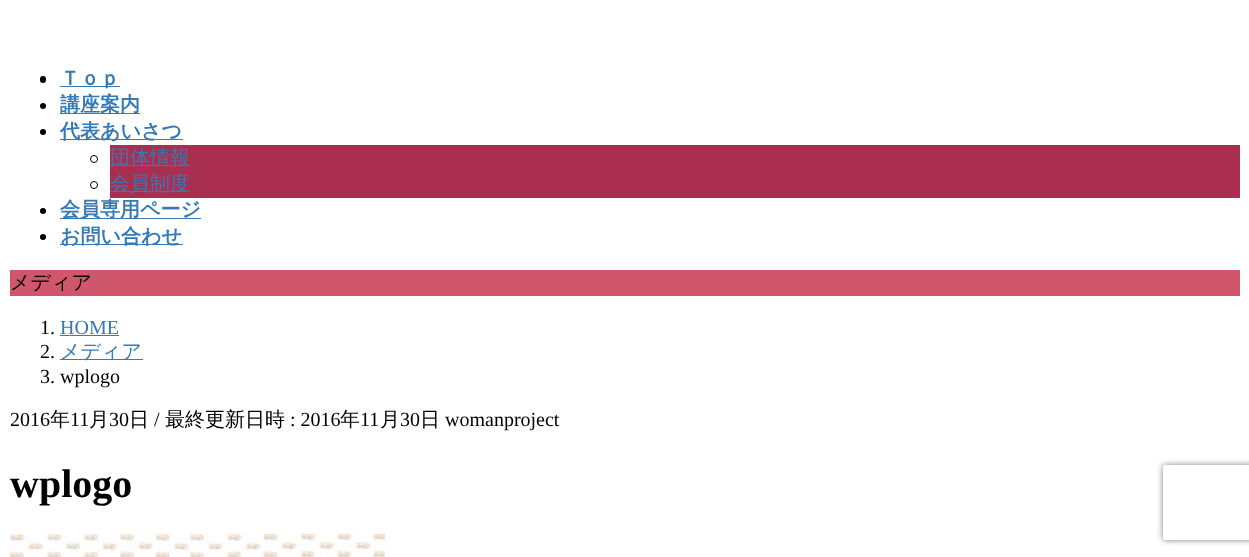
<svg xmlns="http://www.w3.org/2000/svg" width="1249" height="557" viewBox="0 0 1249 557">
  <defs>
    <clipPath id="clip1"><path d="M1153 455H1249V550H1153ZM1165.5 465H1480.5C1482 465 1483 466 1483 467.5V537.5C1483 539 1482 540 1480.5 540H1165.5C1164 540 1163 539 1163 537.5V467.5C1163 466 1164 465 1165.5 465Z" clip-rule="evenodd"/></clipPath>
  </defs>
  <rect width="100%" height="100%" fill="#fff"/>
  <rect x="40" y="76" width="6" height="7" rx="3" fill="#000"/>
  <path d="M60 86h60v1H60z" fill="#337ab7"/>
  <circle cx="43" cy="106" r="3" fill="#000"/>
  <path d="M60 113h80v1H60z" fill="#337ab7"/>
  <circle cx="43" cy="132" r="3" fill="#000"/>
  <path d="M60 139h123v1H60z" fill="#337ab7"/>
  <path d="M110 145h1130v53H110z" fill="#aa2e4f"/>
  <circle cx="94" cy="159" r="3.5" fill="none" stroke="#000"/>
  <path d="M110 165h80v1H110z" fill="#337ab7"/>
  <circle cx="94" cy="185" r="3.5" fill="none" stroke="#000"/>
  <path d="M110 191h80v1H110z" fill="#337ab7"/>
  <circle cx="43" cy="211" r="3" fill="#000"/>
  <path d="M60 218h141v1H60z" fill="#337ab7"/>
  <circle cx="43" cy="237" r="3" fill="#000"/>
  <path d="M60 244h123v1H60z" fill="#337ab7"/>
  <path d="M10 270h1230v26H10z" fill="#d0576b"/>
  <path d="M60 335h59v1H60z" fill="#337ab7"/>
  <path d="M60 359h83v1H60z" fill="#337ab7"/>
  <image x="10" y="533" width="375" height="24" href="img/1.png"/>
  <g clip-path="url(#clip1)">
    <rect x="1163" y="465" width="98" height="75" rx="2.5" fill="#808080" filter="blur(3px)"/>
  </g>
  <g font-family="WenQuanYi Zen Hei" font-size="20" font-weight="bold" fill="#337ab7">
    <text x="60" y="85">Ｔｏｐ</text>
    <text x="60" y="111">講座案内</text>
    <text x="60" y="138">代表あいさつ</text>
  </g>
  <g font-family="WenQuanYi Zen Hei" font-size="20" font-weight="500" fill="#337ab7">
    <text x="110" y="164">団体情報</text>
    <text x="110" y="190">会員制度</text>
  </g>
  <g font-family="WenQuanYi Zen Hei" font-size="20" font-weight="bold" fill="#337ab7">
    <text x="60" y="216">会員専用ページ</text>
    <text x="60" y="243">お問い合わせ</text>
  </g>
  <text x="10" y="289" font-family="WenQuanYi Zen Hei" font-size="20" font-weight="500" fill="#000">メディア</text>
  <text x="40" y="334" font-family="Liberation Serif" font-size="20" fill="#000">1.</text>
  <text x="60" y="334" font-family="Liberation Serif" font-size="20" fill="#337ab7">HOME</text>
  <text x="40" y="358" font-family="Liberation Serif" font-size="20" fill="#000">2.</text>
  <text x="60" y="358" font-family="WenQuanYi Zen Hei" font-size="20" font-weight="500" fill="#337ab7">メディア</text>
  <g font-family="Liberation Serif" font-size="20" fill="#000">
    <text x="40" y="383">3. wplogo</text>
    <text x="10" y="426">2016</text>
  </g>
  <text x="50" y="426" font-family="WenQuanYi Zen Hei" font-size="20" font-weight="500" fill="#000">年</text>
  <text x="70" y="426" font-family="Liberation Serif" font-size="20" fill="#000">11</text>
  <text x="89" y="426" font-family="WenQuanYi Zen Hei" font-size="20" font-weight="500" fill="#000">月</text>
  <text x="109" y="426" font-family="Liberation Serif" font-size="20" fill="#000">30</text>
  <text x="129" y="426" font-family="WenQuanYi Zen Hei" font-size="20" font-weight="500" fill="#000">日</text>
  <text x="154" y="426" font-family="Liberation Serif" font-size="20" fill="#000">/</text>
  <text x="165" y="426" font-family="WenQuanYi Zen Hei" font-size="20" font-weight="500" fill="#000">最終更新日時</text>
  <text x="290" y="426" font-family="Liberation Serif" font-size="20" fill="#000">: 2016</text>
  <text x="340" y="426" font-family="WenQuanYi Zen Hei" font-size="20" font-weight="500" fill="#000">年</text>
  <text x="360" y="426" font-family="Liberation Serif" font-size="20" fill="#000">11</text>
  <text x="380" y="426" font-family="WenQuanYi Zen Hei" font-size="20" font-weight="500" fill="#000">月</text>
  <text x="400" y="426" font-family="Liberation Serif" font-size="20" fill="#000">30</text>
  <text x="420" y="426" font-family="WenQuanYi Zen Hei" font-size="20" font-weight="500" fill="#000">日</text>
  <text x="445" y="426" font-family="Liberation Serif" font-size="20" fill="#000">womanproject</text>
  <text x="10" y="497" font-family="Liberation Serif" font-size="40" font-weight="bold" fill="#000">wplogo</text>
</svg>
